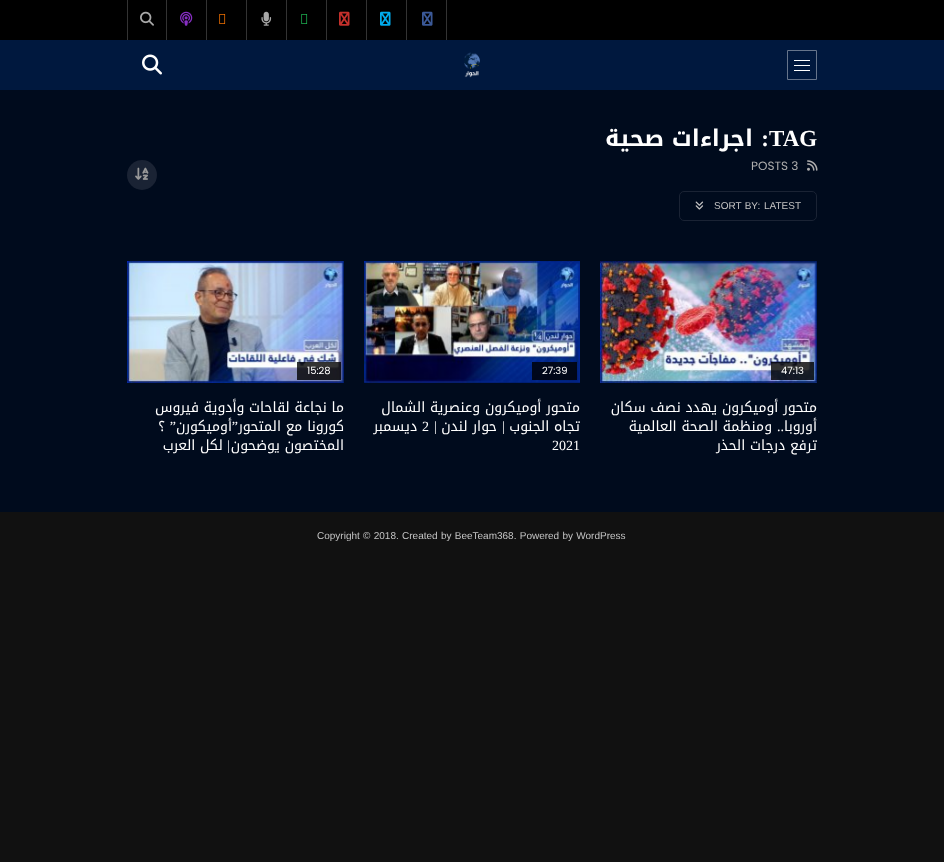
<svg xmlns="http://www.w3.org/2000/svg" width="944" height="862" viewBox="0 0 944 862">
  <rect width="100%" height="100%" fill="#111"/>
  <path d="M0 90h944v422H0z" fill="#000b1d"/>
  <path d="M0 40h944v50H0z" fill="#00183e"/>
  <path d="M0 0h944v40H0z" fill="#000"/>
  <path d="M446 0h1v40H446z" fill="#333"/>
  <image x="422" y="11" width="11" height="15" href="img/1.png"/>
  <path d="M406 0h1v40H406z" fill="#333"/>
  <image x="380" y="11" width="11" height="15" href="img/2.png"/>
  <path d="M366 0h1v40H366z" fill="#333"/>
  <image x="339" y="11" width="11" height="15" href="img/3.png"/>
  <path d="M326 0h1v40H326z" fill="#333"/>
  <image x="301" y="14" width="7" height="10" href="img/4.png"/>
  <path d="M286 0h1v40H286z" fill="#333"/>
  <image x="261" y="11" width="11" height="15" href="img/5.png"/>
  <path d="M246 0h1v40H246z" fill="#333"/>
  <image x="219" y="14" width="7" height="10" href="img/6.png"/>
  <path d="M206 0h1v40H206z" fill="#333"/>
  <image x="180" y="11" width="13" height="15" href="img/7.png"/>
  <path d="M166 0h1v40H166z" fill="#333"/>
  <path d="M127 0h1v40H127z" fill="#333"/>
  <image x="140" y="11" width="14" height="15" href="img/8.png"/>
  <path d="M787.5 50.5h29v29H787.5z" fill="none" stroke="#66748b"/>
  <path d="M794 60h16v1H794z" fill="#fff"/>
  <path d="M794 65h16v1H794z" fill="#fff"/>
  <path d="M794 70h16v1H794z" fill="#fff"/>
  <image x="464" y="52" width="16" height="26" href="img/9.png"/>
  <image x="142" y="54" width="20" height="21" href="img/10.png"/>
  <image x="807" y="160" width="11" height="11" href="img/11.png"/>
  <rect x="679.5" y="191.5" width="137" height="29" rx="4.5" fill="none" stroke="#1a2334"/>
  <image x="695" y="201" width="9" height="9" href="img/12.png"/>
  <circle cx="142" cy="175" r="15" fill="#1a2334"/>
  <image x="135" y="167" width="14" height="13" href="img/13.png"/>
  <image x="600" y="261" width="217" height="122" href="img/14.png"/>
  <path d="M771 362h43v18H771z" fill="#000000cc"/>
  <image x="364" y="261" width="216" height="122" href="img/15.png"/>
  <path d="M532 362h45v18H532z" fill="#000000cc"/>
  <image x="127" y="261" width="217" height="122" href="img/16.png"/>
  <path d="M297 362h44v18H297z" fill="#000000cc"/>
  <text x="769" y="146" font-family="Liberation Serif" font-size="23" font-weight="bold" fill="#fff">TAG</text>
  <text x="769" y="146" font-family="Liberation Serif" font-size="23" font-weight="bold" direction="rtl" fill="#fff">:</text>
  <text x="753" y="146" font-family="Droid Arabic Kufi" font-size="23" font-weight="bold" direction="rtl" fill="#fff">اجراءات صحية</text>
  <text x="751" y="170" font-family="Poppins" font-size="12" fill="#aeaeae">POSTS 3</text>
  <g font-family="Liberation Sans" font-size="10" fill="#c4c4c4">
    <text x="764" y="209">LATEST</text>
    <text x="714" y="209" word-spacing="0.5">SORT BY:</text>
  </g>
  <text x="781" y="374" font-family="Poppins" font-size="10" fill="#fff">47:13</text>
  <g font-family="Droid Arabic Kufi" font-size="14" direction="rtl" fill="#fff">
    <text x="817" y="412">متحور أوميكرون يهدد نصف سكان</text>
    <text x="817" y="431">أوروبا</text>
  </g>
  <text x="784" y="431" font-family="Liberation Serif" font-size="14" direction="rtl" fill="#fff">..</text>
  <g font-family="Droid Arabic Kufi" font-size="14" direction="rtl" fill="#fff">
    <text x="772" y="431">ومنظمة الصحة العالمية</text>
    <text x="817" y="450">ترفع درجات الحذر</text>
  </g>
  <text x="542" y="374" font-family="Poppins" font-size="10" fill="#fff">27:39</text>
  <g font-family="Droid Arabic Kufi" font-size="14" direction="rtl" fill="#fff">
    <text x="580" y="412">متحور أوميكرون وعنصرية الشمال</text>
    <text x="580" y="431">تجاه الجنوب</text>
  </g>
  <text x="505" y="431" font-family="Liberation Serif" font-size="14" direction="rtl" fill="#fff">|</text>
  <text x="497" y="431" font-family="Droid Arabic Kufi" font-size="14" direction="rtl" fill="#fff">حوار لندن</text>
  <text x="437" y="431" font-family="Liberation Serif" font-size="14" direction="rtl" fill="#fff">|</text>
  <text x="422" y="431" font-family="Liberation Serif" font-size="14" fill="#fff">2</text>
  <text x="417" y="431" font-family="Droid Arabic Kufi" font-size="14" direction="rtl" fill="#fff">ديسمبر</text>
  <text x="552" y="450" font-family="Liberation Serif" font-size="14" fill="#fff">2021</text>
  <text x="307" y="374" font-family="Poppins" font-size="10" fill="#fff">15:28</text>
  <text x="344" y="412" font-family="Droid Arabic Kufi" font-size="14" direction="rtl" fill="#fff">ما نجاعة لقاحات وأدوية فيروس</text>
  <text x="238" y="431" font-family="Liberation Serif" font-size="14" direction="rtl" fill="#fff">”</text>
  <g font-family="Droid Arabic Kufi" font-size="14" direction="rtl" fill="#fff">
    <text x="344" y="431">كورونا مع المتحور</text>
    <text x="232" y="431">أوميكورن</text>
  </g>
  <text x="176" y="431" font-family="Liberation Serif" font-size="14" direction="rtl" fill="#fff">”</text>
  <g font-family="Droid Arabic Kufi" font-size="14" direction="rtl" fill="#fff">
    <text x="165" y="431">؟</text>
    <text x="344" y="450">المختصون يوضحون</text>
  </g>
  <text x="230" y="450" font-family="Liberation Serif" font-size="14" direction="rtl" fill="#fff">|</text>
  <text x="223" y="450" font-family="Droid Arabic Kufi" font-size="14" direction="rtl" fill="#fff">لكل العرب</text>
  <text x="317" y="539" word-spacing="0.5" font-family="Liberation Sans" font-size="10" fill="#c4c4c4">Copyright © 2018. Created by BeeTeam368. Powered by WordPress</text>
</svg>
